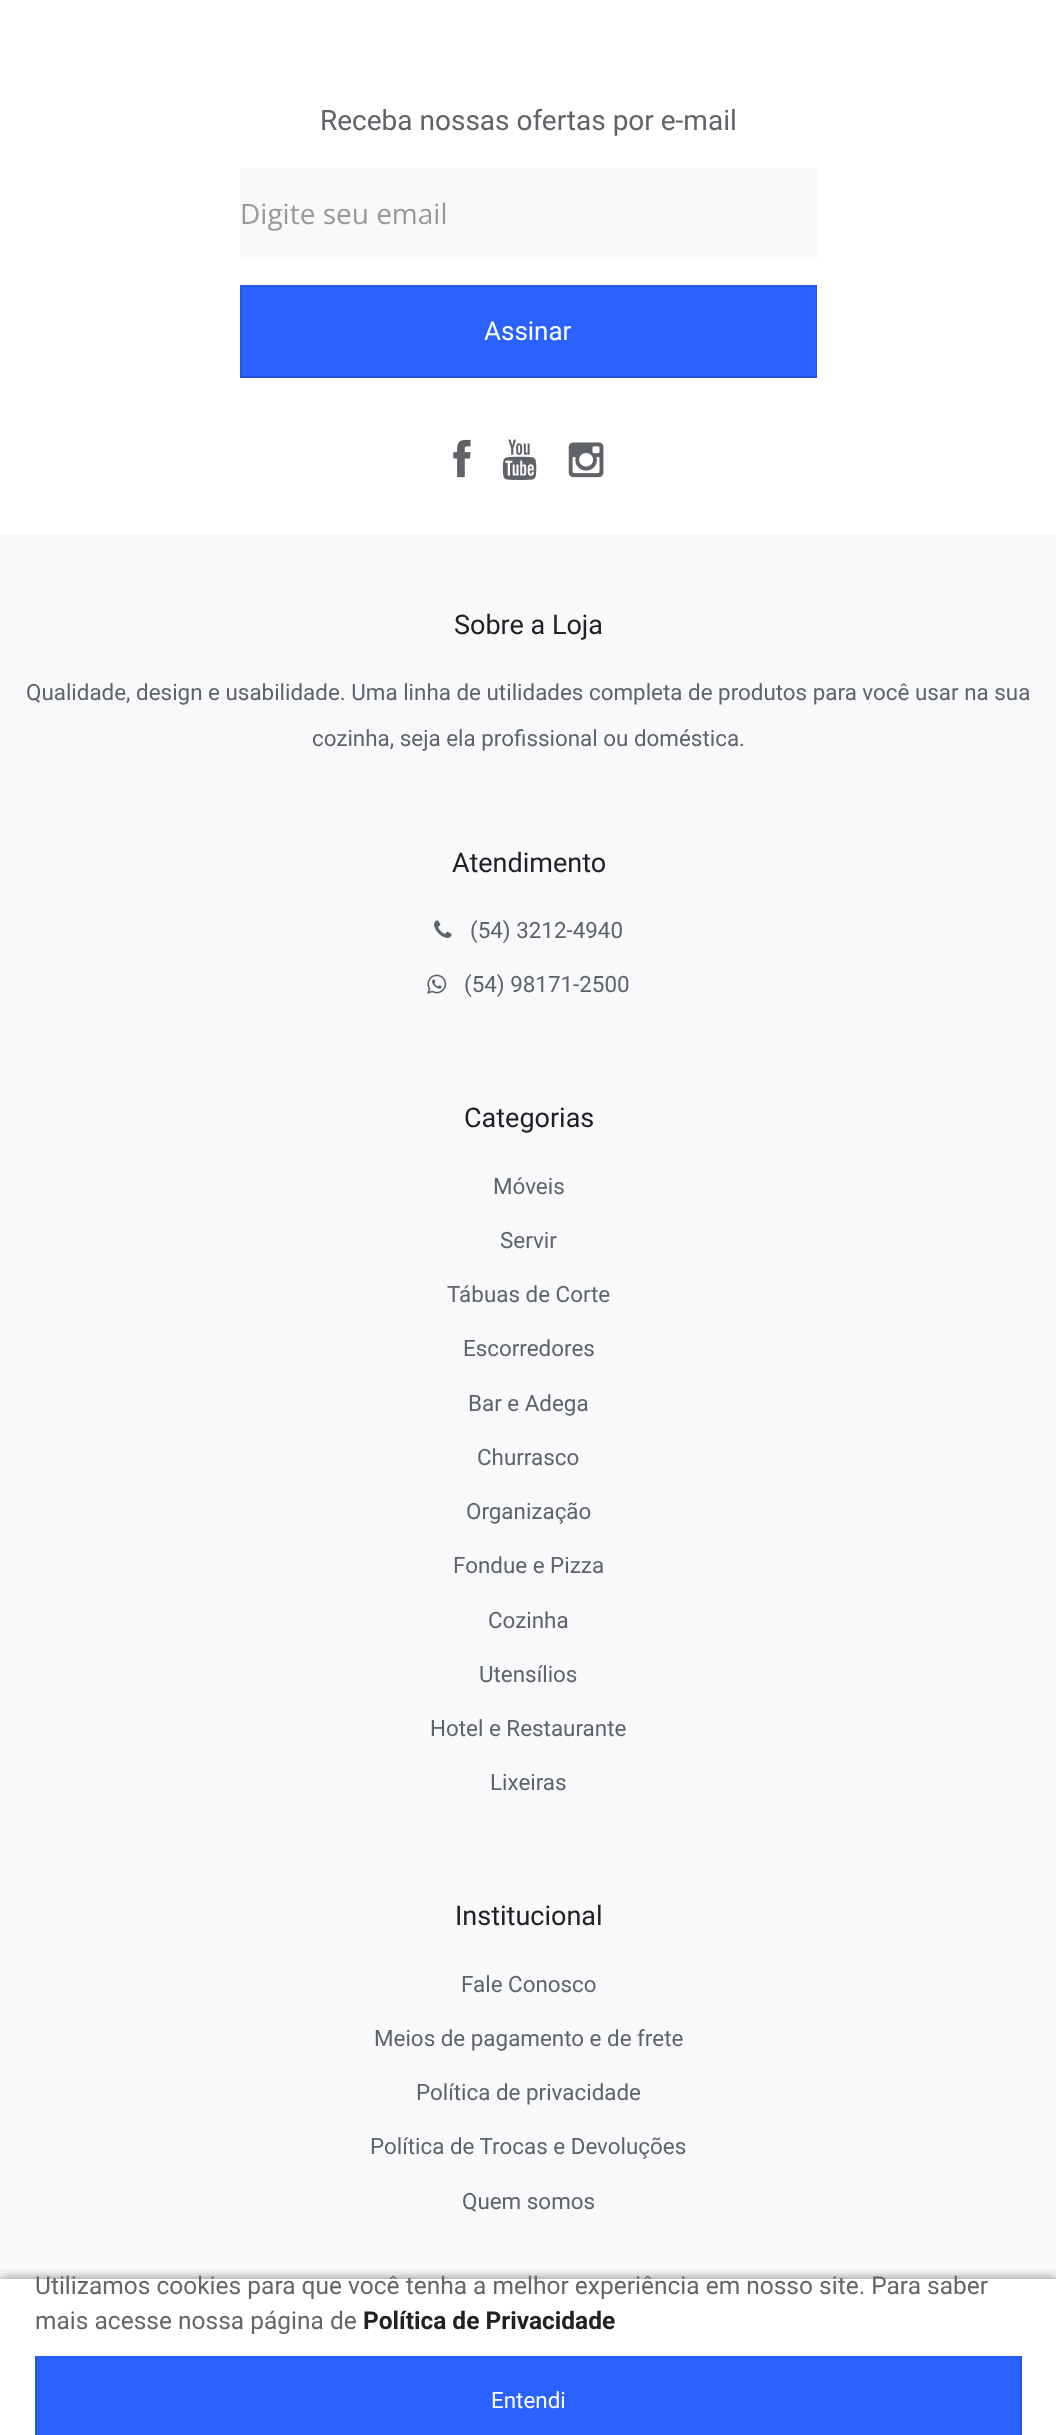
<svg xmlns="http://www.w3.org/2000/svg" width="1056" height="2435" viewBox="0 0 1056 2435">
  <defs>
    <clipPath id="clip1"><path d="M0 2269h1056v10H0z"/></clipPath>
  </defs>
  <rect width="100%" height="100%" fill="#fff"/>
  <path d="M240 168h577v91H240z" fill="#f8f9fa"/>
  <path d="M240 285h577v93H240z" fill="#2962ff"/>
  <path d="M240 285H817L816 287H242Z" fill="#2558e6"/>
  <path d="M817 285V378L816 376V287Z" fill="#0000001a"/>
  <path d="M817 378H240L242 376H816Z" fill="#00000033"/>
  <path d="M240 378V285L242 287V376Z" fill="#0000001a"/>
  <image x="453" y="439" width="18" height="39" href="img/1.png"/>
  <image x="502" y="439" width="35" height="41" href="img/2.png"/>
  <image x="568" y="442" width="36" height="36" href="img/3.png"/>
  <path d="M0 534h1056v1745H0z" fill="#f8f9fa"/>
  <image x="434" y="920" width="18" height="18" href="img/4.png"/>
  <image x="427" y="974" width="20" height="20" href="img/5.png"/>
  <g clip-path="url(#clip1)">
    <path d="M0 2279h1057v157H0z" fill="#00000080" filter="blur(6px)"/>
  </g>
  <path d="M35 2356h987v79H35z" fill="#2962ff"/>
  <path d="M35 2356H1022L1020 2357H37Z" fill="#2558e6"/>
  <path d="M1022 2356V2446L1020 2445V2357Z" fill="#0000001a"/>
  <path d="M35 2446V2356L37 2357V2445Z" fill="#0000001a"/>
  <text x="320" y="130" font-family="Roboto" font-size="28" fill="#5f6368">Receba nossas ofertas por e-mail</text>
  <text x="240" y="224" font-family="Open Sans" font-size="28" fill="#999">Digite seu email</text>
  <text x="484" y="340" font-family="Roboto" font-size="26" fill="#fff">Assinar</text>
  <text x="454" y="634" font-family="Roboto" font-size="27" fill="#202124">Sobre a Loja</text>
  <g font-family="Roboto" font-size="22.4" fill="#5f6368">
    <text x="26" y="700">Qualidade, design e usabilidade. Uma linha de utilidades completa de produtos para você usar na sua</text>
    <text x="312" y="746">cozinha, seja ela profissional ou doméstica.</text>
  </g>
  <text x="452" y="872" font-family="Roboto" font-size="27" fill="#202124">Atendimento</text>
  <g font-family="Roboto" font-size="22.4" fill="#5f6368">
    <text x="470" y="938">(54) 3212-4940</text>
    <text x="464" y="992">(54) 98171-2500</text>
  </g>
  <text x="464" y="1127" font-family="Roboto" font-size="27" fill="#202124">Categorias</text>
  <g font-family="Roboto" font-size="22.4" fill="#5f6368">
    <text x="493" y="1194">Móveis</text>
    <text x="500" y="1248">Servir</text>
    <text x="447" y="1302">Tábuas de Corte</text>
    <text x="463" y="1356">Escorredores</text>
    <text x="468" y="1411">Bar e Adega</text>
    <text x="477" y="1465">Churrasco</text>
    <text x="466" y="1519">Organização</text>
    <text x="453" y="1573">Fondue e Pizza</text>
    <text x="488" y="1628">Cozinha</text>
    <text x="479" y="1682">Utensílios</text>
    <text x="430" y="1736">Hotel e Restaurante</text>
    <text x="490" y="1790">Lixeiras</text>
  </g>
  <text x="455" y="1925" font-family="Roboto" font-size="27" fill="#202124">Institucional</text>
  <g font-family="Roboto" font-size="22.4" fill="#5f6368">
    <text x="461" y="1992">Fale Conosco</text>
    <text x="374" y="2046">Meios de pagamento e de frete</text>
    <text x="416" y="2100">Política de privacidade</text>
    <text x="370" y="2154">Política de Trocas e Devoluções</text>
    <text x="462" y="2209">Quem somos</text>
  </g>
  <g font-family="Roboto" font-size="24.5" fill="#666">
    <text x="35" y="2294">Utilizamos cookies para que você tenha a melhor experiência em nosso site. Para saber</text>
    <text x="35" y="2329">mais acesse nossa página de</text>
  </g>
  <text x="363" y="2329" font-family="Roboto" font-size="24.5" font-weight="bold" fill="#202124">Política de Privacidade</text>
  <text x="491" y="2408" font-family="Roboto" font-size="22.4" fill="#fff">Entendi</text>
</svg>
